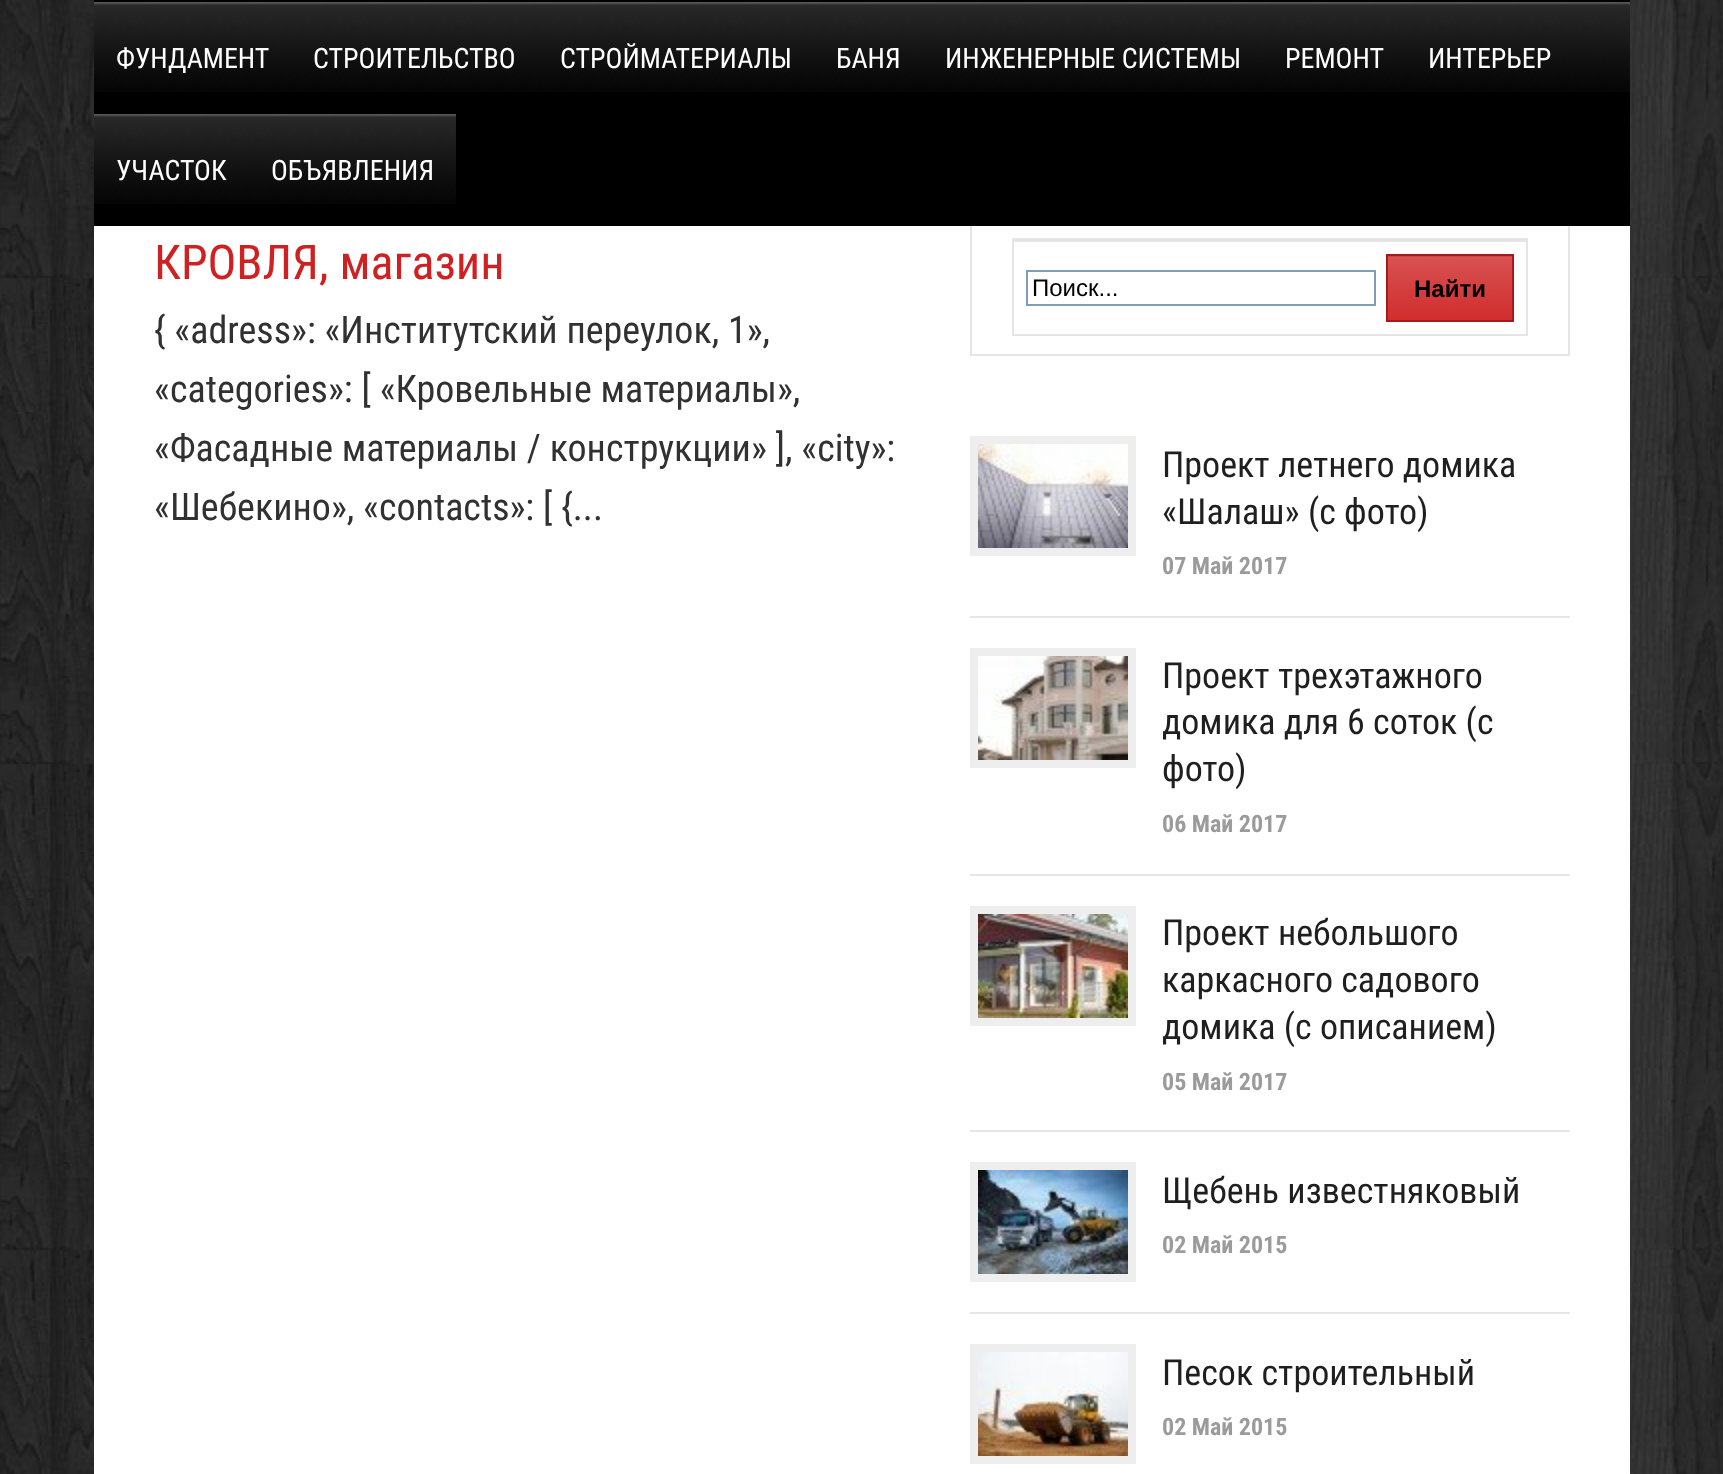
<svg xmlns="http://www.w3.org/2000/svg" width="1723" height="1474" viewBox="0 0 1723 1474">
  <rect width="100%" height="100%" fill="#fff"/>
  <image x="0" y="0" width="1723" height="1474" href="img/1.png"/>
  <path d="M94 226h1536v1248H94z" fill="#fff"/>
  <path d="M1568 218h2v138H1568z" fill="#e5e5e5"/>
  <path d="M970 354h600v2H970z" fill="#e5e5e5"/>
  <path d="M970 218h2v138H970z" fill="#e5e5e5"/>
  <path d="M94 0h1536v226H94z" fill="#000"/>
  <image x="1574" y="2" width="56" height="90" href="img/2.png"/>
  <image x="94" y="2" width="198" height="90" href="img/3.png"/>
  <image x="292" y="2" width="246" height="90" href="img/4.png"/>
  <image x="538" y="2" width="276" height="90" href="img/5.png"/>
  <image x="814" y="2" width="108" height="90" href="img/6.png"/>
  <image x="922" y="2" width="340" height="90" href="img/7.png"/>
  <image x="1262" y="2" width="144" height="90" href="img/8.png"/>
  <image x="1406" y="2" width="168" height="90" href="img/9.png"/>
  <image x="94" y="114" width="154" height="90" href="img/10.png"/>
  <image x="248" y="114" width="208" height="90" href="img/11.png"/>
  <path d="M1013 239h514v96H1013z" fill="none" stroke="#e5e5e5" stroke-width="2"/>
  <path d="M1014 240h512v2H1014z" fill="#e5e5e5"/>
  <path d="M1027 271h348v34H1027z" fill="none" stroke="#7f9db9" stroke-width="2"/>
  <path d="M1388 256h124v64H1388z" fill="#ce2121"/>
  <image x="1388" y="256" width="124" height="64" href="img/12.png"/>
  <path d="M1387 255h126v66H1387z" fill="none" stroke="#a51a1a" stroke-width="2"/>
  <path d="M970 616h600v2H970z" fill="#e6e6e6"/>
  <path d="M970 436h166v120H970z" fill="#eee"/>
  <image x="978" y="444" width="150" height="104" href="img/13.png"/>
  <path d="M970 874h600v2H970z" fill="#e6e6e6"/>
  <path d="M970 648h166v120H970z" fill="#eee"/>
  <image x="978" y="656" width="150" height="104" href="img/14.png"/>
  <path d="M970 1130h600v2H970z" fill="#e6e6e6"/>
  <path d="M970 906h166v120H970z" fill="#eee"/>
  <image x="978" y="914" width="150" height="104" href="img/15.png"/>
  <path d="M970 1312h600v2H970z" fill="#e6e6e6"/>
  <path d="M970 1162h166v120H970z" fill="#eee"/>
  <image x="978" y="1170" width="150" height="104" href="img/16.png"/>
  <path d="M970 1344h166v120H970z" fill="#eee"/>
  <image x="978" y="1352" width="150" height="104" href="img/17.png"/>
  <g font-family="Roboto Condensed" font-size="28" fill="#fff">
    <text x="116" y="68">ФУНДАМЕНТ</text>
    <text x="313" y="68">СТРОИТЕЛЬСТВО</text>
    <text x="560" y="68">СТРОЙМАТЕРИАЛЫ</text>
    <text x="836" y="68">БАНЯ</text>
    <text x="945" y="68">ИНЖЕНЕРНЫЕ СИСТЕМЫ</text>
    <text x="1285" y="68">РЕМОНТ</text>
    <text x="1428" y="68">ИНТЕРЬЕР</text>
    <text x="116" y="180">УЧАСТОК</text>
    <text x="271" y="180">ОБЪЯВЛЕНИЯ</text>
  </g>
  <text x="154" y="279" font-family="Roboto Condensed" font-size="48" fill="#cf2121">КРОВЛЯ, магазин</text>
  <g font-family="Roboto Condensed" font-size="38" fill="#313131">
    <text x="154" y="343">{ «adress»: «Институтский переулок, 1»,</text>
    <text x="154" y="402">«categories»: [ «Кровельные материалы»,</text>
    <text x="154" y="461">«Фасадные материалы / конструкции» ], «city»:</text>
    <text x="154" y="520">«Шебекино», «contacts»: [ {...</text>
  </g>
  <text x="1032" y="296" font-family="Liberation Sans" font-size="24" fill="#000">Поиск...</text>
  <text x="1414" y="297" font-family="Liberation Sans" font-size="24" font-weight="bold" fill="#000">Найти</text>
  <g font-family="Roboto Condensed" font-size="36" fill="#1f1f1f">
    <text x="1162" y="477">Проект летнего домика</text>
    <text x="1162" y="524">«Шалаш» (с фото)</text>
  </g>
  <text x="1162" y="574" font-family="Roboto Condensed" font-size="24" font-weight="bold" fill="#9b9b9b">07 Май 2017</text>
  <g font-family="Roboto Condensed" font-size="36" fill="#1f1f1f">
    <text x="1162" y="688">Проект трехэтажного</text>
    <text x="1162" y="734">домика для 6 соток (с</text>
    <text x="1162" y="781">фото)</text>
  </g>
  <text x="1162" y="832" font-family="Roboto Condensed" font-size="24" font-weight="bold" fill="#9b9b9b">06 Май 2017</text>
  <g font-family="Roboto Condensed" font-size="36" fill="#1f1f1f">
    <text x="1162" y="945">Проект небольшого</text>
    <text x="1162" y="992">каркасного садового</text>
    <text x="1162" y="1039">домика (с описанием)</text>
  </g>
  <text x="1162" y="1090" font-family="Roboto Condensed" font-size="24" font-weight="bold" fill="#9b9b9b">05 Май 2017</text>
  <text x="1162" y="1203" font-family="Roboto Condensed" font-size="36" fill="#1f1f1f">Щебень известняковый</text>
  <text x="1162" y="1253" font-family="Roboto Condensed" font-size="24" font-weight="bold" fill="#9b9b9b">02 Май 2015</text>
  <text x="1162" y="1385" font-family="Roboto Condensed" font-size="36" fill="#1f1f1f">Песок строительный</text>
  <text x="1162" y="1435" font-family="Roboto Condensed" font-size="24" font-weight="bold" fill="#9b9b9b">02 Май 2015</text>
</svg>
